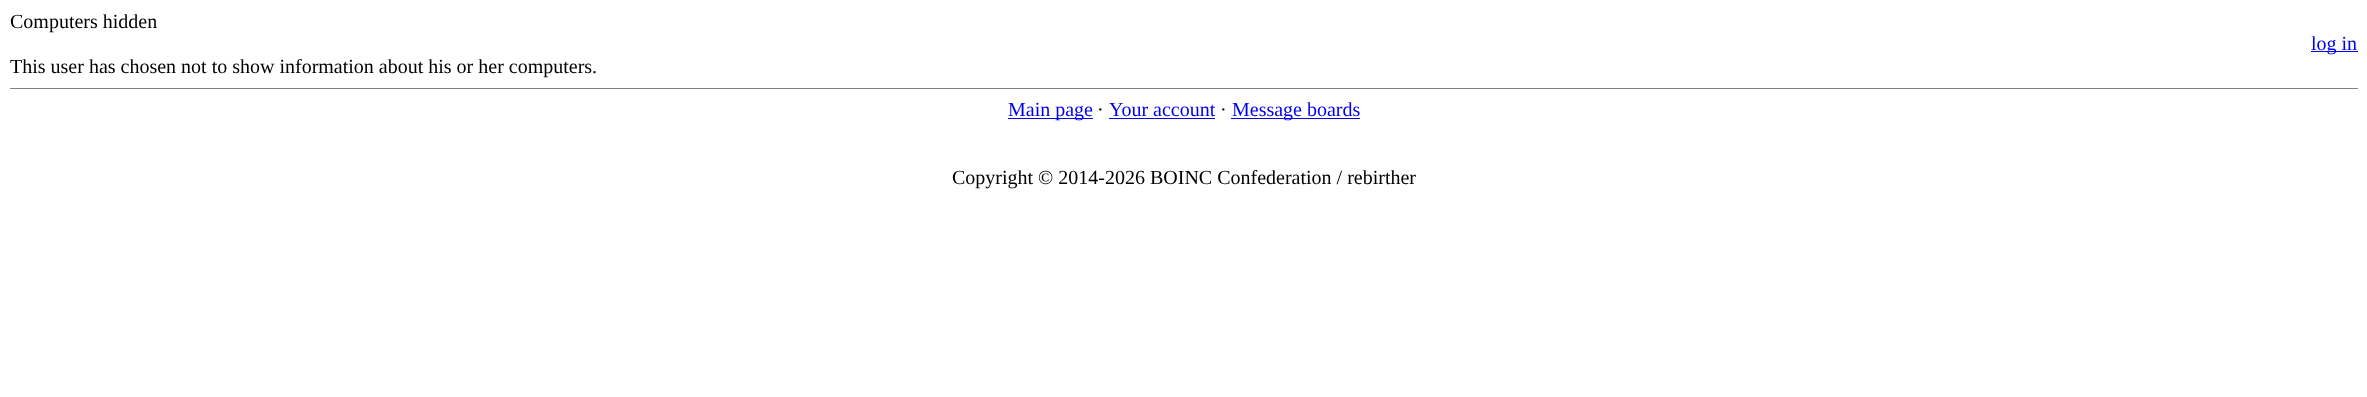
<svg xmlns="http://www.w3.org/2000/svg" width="2367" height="397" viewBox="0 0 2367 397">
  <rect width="100%" height="100%" fill="#fff"/>
  <path d="M2311 51h47v1H2311z" fill="#00e"/>
  <path d="M10 88h2348v1H10z" fill="#808080"/>
  <path d="M1008 118h85v1H1008z" fill="#00e"/>
  <path d="M1109 118h106v1H1109z" fill="#00e"/>
  <path d="M1231 118h129v1H1231z" fill="#00e"/>
  <text x="10" y="28" font-family="Liberation Serif" font-size="20" fill="#000">Computers hidden</text>
  <text x="2311" y="50" font-family="Liberation Serif" font-size="20" fill="#00e">log in</text>
  <text x="10" y="73" font-family="Liberation Serif" font-size="20" fill="#000">This user has chosen not to show information about his or her computers.</text>
  <text x="1008" y="116" font-family="Liberation Serif" font-size="20" fill="#00e">Main page</text>
  <text x="1097" y="116" font-family="Liberation Serif" font-size="20" fill="#000">·</text>
  <text x="1109" y="116" font-family="Liberation Serif" font-size="20" fill="#00e">Your account</text>
  <text x="1220" y="116" font-family="Liberation Serif" font-size="20" fill="#000">·</text>
  <text x="1232" y="116" font-family="Liberation Serif" font-size="20" fill="#00e">Message boards</text>
  <text x="952" y="184" font-family="Liberation Serif" font-size="20" fill="#000">Copyright © 2014-2026 BOINC Confederation / rebirther</text>
</svg>
